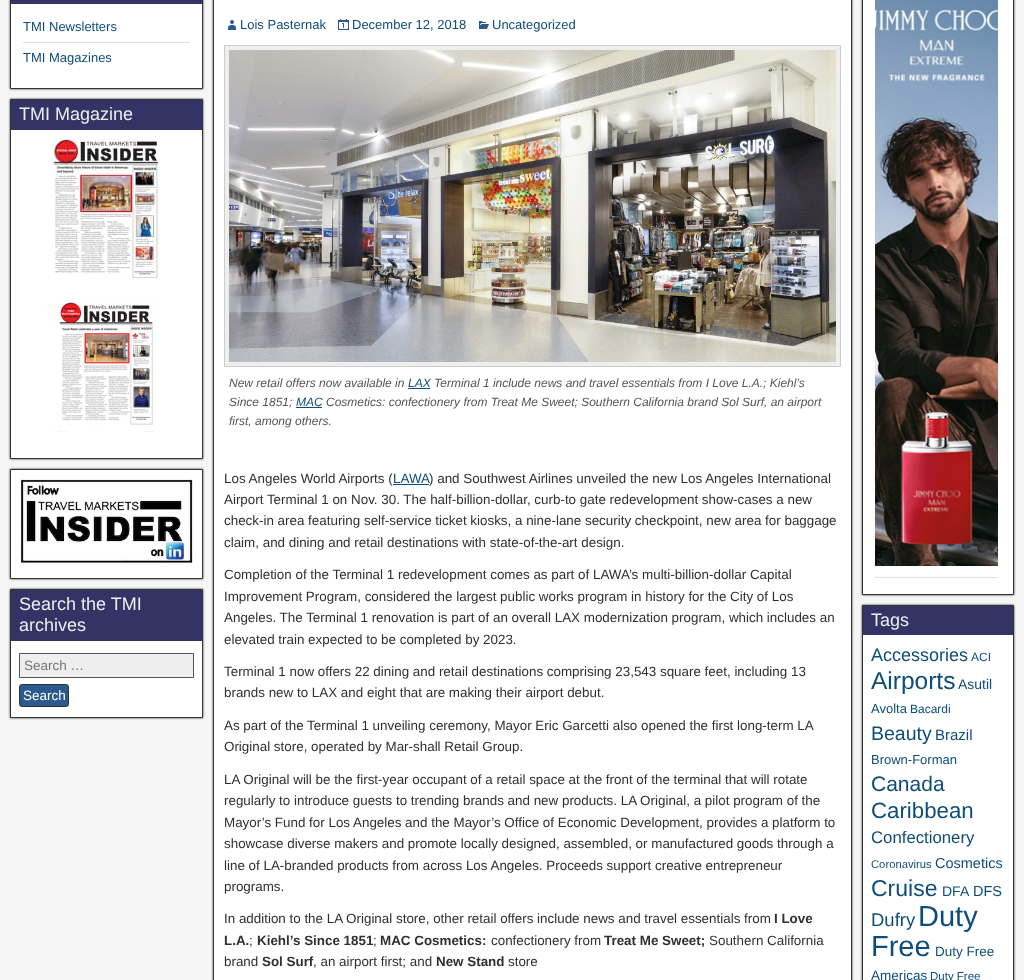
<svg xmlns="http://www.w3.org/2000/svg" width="1024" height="980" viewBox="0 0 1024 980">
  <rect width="100%" height="100%" fill="#f5f5f5"/>
  <path d="M10 -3h193v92H10z" fill="#333" filter="blur(1px)"/>
  <path d="M11 4h191v84H11z" fill="#fff"/>
  <path d="M10.5 -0.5h192v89H10.5z" fill="none" stroke="#333"/>
  <path d="M11 0h191v4H11z" fill="#336"/>
  <path d="M23 42h167v1H23z" fill="#e0e0e0"/>
  <path d="M10 99h193v360H10z" fill="#333" filter="blur(1px)"/>
  <path d="M11 130h191v328H11z" fill="#fff"/>
  <path d="M10.5 99.5h192v359H10.5z" fill="none" stroke="#333"/>
  <path d="M11 100h191v30H11z" fill="#336"/>
  <image x="52" y="138" width="108" height="142" href="img/1.png"/>
  <image x="53" y="298" width="104" height="134" href="img/2.png"/>
  <path d="M10 469h193v110H10z" fill="#333" filter="blur(1px)"/>
  <path d="M10.5 469.5h192v109H10.5z" fill="#fff" stroke="#333"/>
  <image x="20" y="478" width="174" height="85" href="img/3.png"/>
  <path d="M10 589h193v129H10z" fill="#333" filter="blur(1px)"/>
  <path d="M11 641h191v76H11z" fill="#fff"/>
  <path d="M10.5 589.5h192v128H10.5z" fill="none" stroke="#333"/>
  <path d="M11 590h191v51H11z" fill="#336"/>
  <path d="M19.5 653.5h174v24H19.5z" fill="#eee" stroke="#555"/>
  <rect x="19.5" y="684.5" width="49" height="22" rx="2.5" fill="#2a5a8e" stroke="#333"/>
  <path d="M213 -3h639v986H213z" fill="#333" filter="blur(1px)"/>
  <path d="M213.5 -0.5h638v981H213.5z" fill="#fff" stroke="#333"/>
  <image x="228" y="20" width="8" height="10" href="img/4.png"/>
  <image x="338" y="19" width="11" height="11" href="img/5.png"/>
  <image x="479" y="21" width="10" height="8" href="img/6.png"/>
  <path d="M224.5 45.5h616v321H224.5z" fill="#eee" stroke="#ccc"/>
  <image x="229" y="50" width="607" height="312" href="img/7.png"/>
  <path d="M408 388h22v1H408z" fill="#0e4d7a"/>
  <path d="M296 407h26v1H296z" fill="#0e4d7a"/>
  <path d="M393 484h36v1H393z" fill="#0e4d7a"/>
  <path d="M862 -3h152v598H862z" fill="#333" filter="blur(1px)"/>
  <path d="M862.5 -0.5h151v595H862.5z" fill="#fff" stroke="#333"/>
  <path d="M875 577h123v1H875z" fill="#e0e0e0"/>
  <image x="875" y="0" width="123" height="566" href="img/8.png"/>
  <path d="M862 605h152v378H862z" fill="#333" filter="blur(1px)"/>
  <path d="M863 635h150v345H863z" fill="#fff"/>
  <path d="M862.5 605.5h151v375H862.5z" fill="none" stroke="#333"/>
  <path d="M863 606h150v29H863z" fill="#336"/>
  <g font-family="Liberation Sans" font-size="13" fill="#0e4d7a">
    <text x="23" y="31">TMI Newsletters</text>
    <text x="23" y="62">TMI Magazines</text>
  </g>
  <g font-family="Liberation Sans" font-size="18" fill="#eee">
    <text x="19" y="120">TMI Magazine</text>
    <text x="19" y="610">Search the TMI</text>
    <text x="19" y="631">archives</text>
  </g>
  <text x="24" y="670" font-family="Liberation Sans" font-size="13.5" fill="#757575">Search …</text>
  <text x="23" y="700" font-family="Liberation Sans" font-size="13.5" fill="#fff">Search</text>
  <g font-family="Liberation Sans" font-size="13" fill="#0e4d7a">
    <text x="240" y="29">Lois Pasternak</text>
    <text x="352" y="29">December 12, 2018</text>
    <text x="492" y="29">Uncategorized</text>
  </g>
  <text x="229" y="387" font-family="Liberation Sans" font-size="12" font-style="italic" fill="#555">New retail offers now available in</text>
  <text x="408" y="387" font-family="Liberation Sans" font-size="12" font-style="italic" fill="#0e4d7a">LAX</text>
  <g font-family="Liberation Sans" font-size="12" font-style="italic" fill="#555">
    <text x="434" y="387">Terminal 1 include news and travel essentials from I Love L.A.; Kiehl’s</text>
    <text x="229" y="406">Since 1851;</text>
  </g>
  <text x="296" y="406" font-family="Liberation Sans" font-size="12" font-style="italic" fill="#0e4d7a">MAC</text>
  <g font-family="Liberation Sans" font-size="12" font-style="italic" fill="#555">
    <text x="326" y="406">Cosmetics: confectionery from Treat Me Sweet; Southern California brand Sol Surf, an airport</text>
    <text x="229" y="425">first, among others.</text>
  </g>
  <text x="224" y="483" font-family="Liberation Sans" font-size="13.4" fill="#303030">Los Angeles World Airports (</text>
  <text x="393" y="483" font-family="Liberation Sans" font-size="13.4" fill="#0e4d7a">LAWA</text>
  <g font-family="Liberation Sans" font-size="13.4" fill="#303030">
    <text x="429" y="483">) and Southwest Airlines unveiled the new Los Angeles International</text>
    <text x="224" y="504">Airport Terminal 1 on Nov. 30. The half-billion-dollar, curb-to gate redevelopment show-cases a new</text>
    <text x="224" y="525">check-in area featuring self-service ticket kiosks, a nine-lane security checkpoint, new area for baggage</text>
    <text x="224" y="547">claim, and dining and retail destinations with state-of-the-art design.</text>
    <text x="224" y="579">Completion of the Terminal 1 redevelopment comes as part of LAWA’s multi-billion-dollar Capital</text>
    <text x="224" y="601">Improvement Program, considered the largest public works program in history for the City of Los</text>
    <text x="224" y="622">Angeles. The Terminal 1 renovation is part of an overall LAX modernization program, which includes an</text>
    <text x="224" y="644">elevated train expected to be completed by 2023.</text>
    <text x="224" y="676">Terminal 1 now offers 22 dining and retail destinations comprising 23,543 square feet, including 13</text>
    <text x="224" y="697">brands new to LAX and eight that are making their airport debut.</text>
    <text x="224" y="730">As part of the Terminal 1 unveiling ceremony, Mayor Eric Garcetti also opened the first long-term LA</text>
    <text x="224" y="751">Original store, operated by Mar-shall Retail Group.</text>
    <text x="224" y="784">LA Original will be the first-year occupant of a retail space at the front of the terminal that will rotate</text>
    <text x="224" y="805">regularly to introduce guests to trending brands and new products. LA Original, a pilot program of the</text>
    <text x="224" y="827">Mayor’s Fund for Los Angeles and the Mayor’s Office of Economic Development, provides a platform to</text>
    <text x="224" y="848">showcase diverse makers and promote locally designed, assembled, or manufactured goods through a</text>
    <text x="224" y="870">line of LA-branded products from across Los Angeles. Proceeds support creative entrepreneur</text>
    <text x="224" y="891">programs.</text>
    <text x="224" y="923">In addition to the LA Original store, other retail offers include news and travel essentials from</text>
  </g>
  <g font-family="Liberation Sans" font-size="13.4" font-weight="bold" fill="#303030">
    <text x="774" y="923">I Love</text>
    <text x="224" y="945">L.A.</text>
  </g>
  <text x="249" y="945" font-family="Liberation Sans" font-size="13.4" fill="#303030">;</text>
  <text x="257" y="945" font-family="Liberation Sans" font-size="13.4" font-weight="bold" fill="#303030">Kiehl’s Since 1851</text>
  <text x="373" y="945" font-family="Liberation Sans" font-size="13.4" fill="#303030">;</text>
  <text x="380" y="945" font-family="Liberation Sans" font-size="13.4" font-weight="bold" fill="#303030">MAC Cosmetics:</text>
  <text x="491" y="945" font-family="Liberation Sans" font-size="13.4" fill="#303030">confectionery from</text>
  <text x="604" y="945" font-family="Liberation Sans" font-size="13.4" font-weight="bold" fill="#303030">Treat Me Sweet;</text>
  <g font-family="Liberation Sans" font-size="13.4" fill="#303030">
    <text x="709" y="945">Southern California</text>
    <text x="224" y="966">brand</text>
  </g>
  <text x="262" y="966" font-family="Liberation Sans" font-size="13.4" font-weight="bold" fill="#303030">Sol Surf</text>
  <text x="313" y="966" font-family="Liberation Sans" font-size="13.4" fill="#303030">, an airport first; and</text>
  <text x="436" y="966" font-family="Liberation Sans" font-size="13.4" font-weight="bold" fill="#303030">New Stand</text>
  <text x="508" y="966" font-family="Liberation Sans" font-size="13.4" fill="#303030">store</text>
  <text x="871" y="626" font-family="Liberation Sans" font-size="18" fill="#eee">Tags</text>
  <text x="871" y="661" font-family="Liberation Sans" font-size="18" fill="#0e4d7a">Accessories</text>
  <text x="971" y="661" font-family="Liberation Sans" font-size="12" fill="#0e4d7a">ACI</text>
  <text x="871" y="689" font-family="Liberation Sans" font-size="24.5" fill="#0e4d7a">Airports</text>
  <text x="958" y="689" font-family="Liberation Sans" font-size="14" fill="#0e4d7a">Asutil</text>
  <text x="871" y="713" font-family="Liberation Sans" font-size="13" fill="#0e4d7a">Avolta</text>
  <text x="910" y="713" font-family="Liberation Sans" font-size="12" fill="#0e4d7a">Bacardi</text>
  <text x="871" y="740" font-family="Liberation Sans" font-size="19.5" fill="#0e4d7a">Beauty</text>
  <text x="935" y="740" font-family="Liberation Sans" font-size="15" fill="#0e4d7a">Brazil</text>
  <text x="871" y="764" font-family="Liberation Sans" font-size="13" fill="#0e4d7a">Brown-Forman</text>
  <text x="871" y="791" font-family="Liberation Sans" font-size="21" fill="#0e4d7a">Canada</text>
  <text x="871" y="818" font-family="Liberation Sans" font-size="22.25" fill="#0e4d7a">Caribbean</text>
  <text x="871" y="843" font-family="Liberation Sans" font-size="16.75" fill="#0e4d7a">Confectionery</text>
  <text x="871" y="868" font-family="Liberation Sans" font-size="11.25" fill="#0e4d7a">Coronavirus</text>
  <text x="935" y="868" font-family="Liberation Sans" font-size="14.5" fill="#0e4d7a">Cosmetics</text>
  <text x="871" y="896" font-family="Liberation Sans" font-size="23" fill="#0e4d7a">Cruise</text>
  <text x="942" y="896" font-family="Liberation Sans" font-size="14" fill="#0e4d7a">DFA</text>
  <text x="973" y="896" font-family="Liberation Sans" font-size="14.5" fill="#0e4d7a">DFS</text>
  <text x="871" y="926" font-family="Liberation Sans" font-size="18.5" fill="#0e4d7a">Dufry</text>
  <g font-family="Liberation Sans" font-size="29" fill="#0e4d7a">
    <text x="918" y="926">Duty</text>
    <text x="871" y="956">Free</text>
  </g>
  <g font-family="Liberation Sans" font-size="13.5" fill="#0e4d7a">
    <text x="935" y="956">Duty Free</text>
    <text x="871" y="980">Americas</text>
  </g>
  <text x="930" y="980" font-family="Liberation Sans" font-size="11.5" fill="#0e4d7a">Duty Free</text>
</svg>
